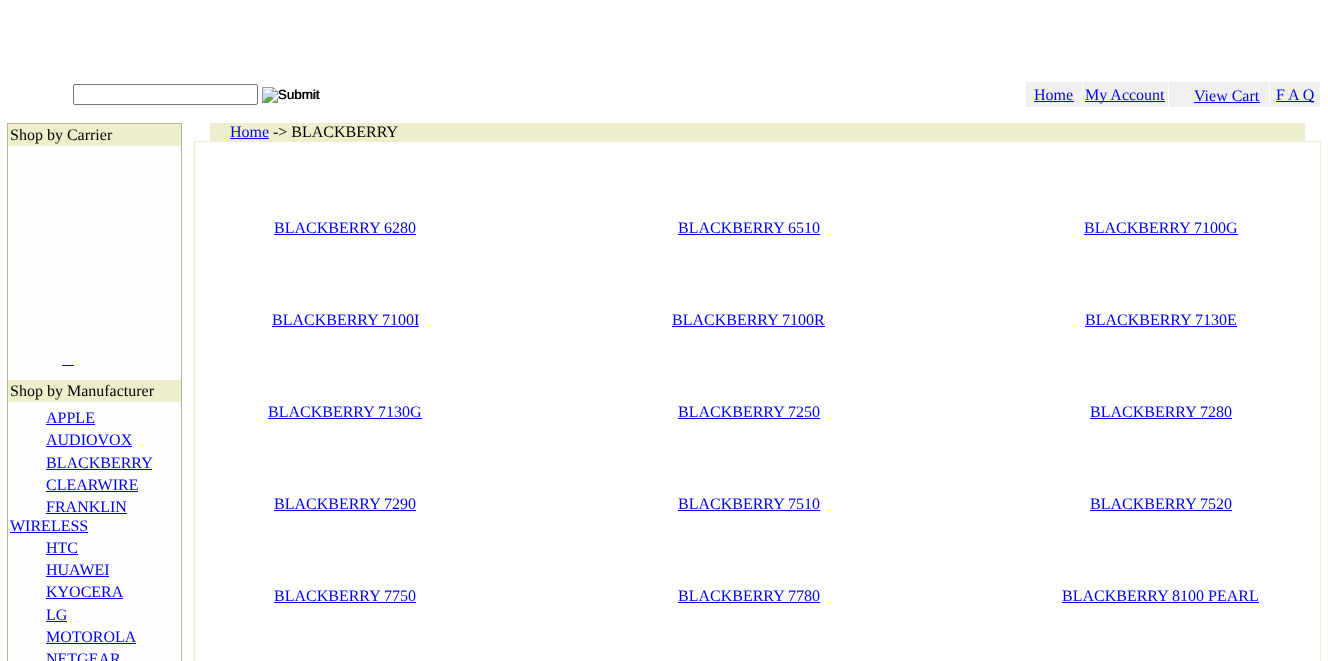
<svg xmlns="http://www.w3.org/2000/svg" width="1328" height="661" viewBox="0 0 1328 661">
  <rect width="100%" height="100%" fill="#fff"/>
  <rect x="73.5" y="84.5" width="184" height="20" rx="1.5" fill="none" stroke="#767676"/>
  <image x="262" y="87" width="57" height="16" href="img/1.png"/>
  <path d="M1026 82h56v25H1026z" fill="#f0f0f0"/>
  <path d="M1034 101h40v1H1034z" fill="#00e"/>
  <path d="M1083 82h85v25H1083z" fill="#f0f0f0"/>
  <path d="M1085 101h80v1H1085z" fill="#00e"/>
  <path d="M1169 82h100v25H1169z" fill="#f0f0f0"/>
  <path d="M1194 102h66v1H1194z" fill="#00e"/>
  <path d="M1270 82h50v25H1270z" fill="#f0f0f0"/>
  <path d="M1276 101h38v1H1276z" fill="#00e"/>
  <path d="M7 123h175v538H7z" fill="#b7b79c"/>
  <path d="M8 146h173v515H8z" fill="#fefefe"/>
  <path d="M8 124h173v22H8z" fill="#eec"/>
  <path d="M62 365h12v1H62z" fill="#00e"/>
  <path d="M8 380h173v22H8z" fill="#eec"/>
  <path d="M46 424h49v1H46z" fill="#00e"/>
  <path d="M46 446h86v1H46z" fill="#00e"/>
  <path d="M46 469h106v1H46z" fill="#00e"/>
  <path d="M46 491h92v1H46z" fill="#00e"/>
  <path d="M46 513h81v1H46z" fill="#00e"/>
  <path d="M10 532h78v1H10z" fill="#00e"/>
  <path d="M46 554h32v1H46z" fill="#00e"/>
  <path d="M46 576h63v1H46z" fill="#00e"/>
  <path d="M46 598h77v1H46z" fill="#00e"/>
  <path d="M46 621h21v1H46z" fill="#00e"/>
  <path d="M46 643h90v1H46z" fill="#00e"/>
  <path d="M210 123h1095v18H210z" fill="#eec"/>
  <path d="M230 138h39v1H230z" fill="#00e"/>
  <path d="M194 141h1127v520H194z" fill="#eec"/>
  <path d="M195 142h1125v519H195z" fill="#fff"/>
  <path d="M274 234h142v1H274z" fill="#00e"/>
  <path d="M678 234h142v1H678z" fill="#00e"/>
  <path d="M1084 234h154v1H1084z" fill="#00e"/>
  <path d="M272 326h147v1H272z" fill="#00e"/>
  <path d="M672 326h153v1H672z" fill="#00e"/>
  <path d="M1085 326h152v1H1085z" fill="#00e"/>
  <path d="M268 418h154v1H268z" fill="#00e"/>
  <path d="M678 418h142v1H678z" fill="#00e"/>
  <path d="M1090 418h142v1H1090z" fill="#00e"/>
  <path d="M274 510h142v1H274z" fill="#00e"/>
  <path d="M678 510h142v1H678z" fill="#00e"/>
  <path d="M1090 510h142v1H1090z" fill="#00e"/>
  <path d="M274 602h142v1H274z" fill="#00e"/>
  <path d="M678 602h142v1H678z" fill="#00e"/>
  <path d="M1062 602h197v1H1062z" fill="#00e"/>
  <text x="278" y="99" font-family="Liberation Sans" font-size="13.5" fill="#000">Submit</text>
  <g font-family="Liberation Serif" font-size="16" fill="#00e">
    <text x="1034" y="100">Home</text>
    <text x="1085" y="100">My Account</text>
    <text x="1194" y="101">View Cart</text>
    <text x="1276" y="100">F A Q</text>
  </g>
  <g font-family="Liberation Serif" font-size="16" fill="#000">
    <text x="10" y="140">Shop by Carrier</text>
    <text x="10" y="396">Shop by Manufacturer</text>
  </g>
  <g font-family="Liberation Serif" font-size="16" fill="#00e">
    <text x="46" y="423">APPLE</text>
    <text x="46" y="445">AUDIOVOX</text>
    <text x="46" y="468">BLACKBERRY</text>
    <text x="46" y="490">CLEARWIRE</text>
    <text x="46" y="512">FRANKLIN</text>
    <text x="10" y="531">WIRELESS</text>
    <text x="46" y="553">HTC</text>
    <text x="46" y="575">HUAWEI</text>
    <text x="46" y="597">KYOCERA</text>
    <text x="46" y="620">LG</text>
    <text x="46" y="642">MOTOROLA</text>
    <text x="46" y="664">NETGEAR</text>
    <text x="230" y="137">Home</text>
  </g>
  <text x="273" y="137" font-family="Liberation Serif" font-size="16" fill="#000">-&gt; BLACKBERRY</text>
  <g font-family="Liberation Serif" font-size="16" fill="#00e">
    <text x="274" y="233">BLACKBERRY 6280</text>
    <text x="678" y="233">BLACKBERRY 6510</text>
    <text x="1084" y="233">BLACKBERRY 7100G</text>
    <text x="272" y="325">BLACKBERRY 7100I</text>
    <text x="672" y="325">BLACKBERRY 7100R</text>
    <text x="1085" y="325">BLACKBERRY 7130E</text>
    <text x="268" y="417">BLACKBERRY 7130G</text>
    <text x="678" y="417">BLACKBERRY 7250</text>
    <text x="1090" y="417">BLACKBERRY 7280</text>
    <text x="274" y="509">BLACKBERRY 7290</text>
    <text x="678" y="509">BLACKBERRY 7510</text>
    <text x="1090" y="509">BLACKBERRY 7520</text>
    <text x="274" y="601">BLACKBERRY 7750</text>
    <text x="678" y="601">BLACKBERRY 7780</text>
    <text x="1062" y="601">BLACKBERRY 8100 PEARL</text>
  </g>
</svg>
